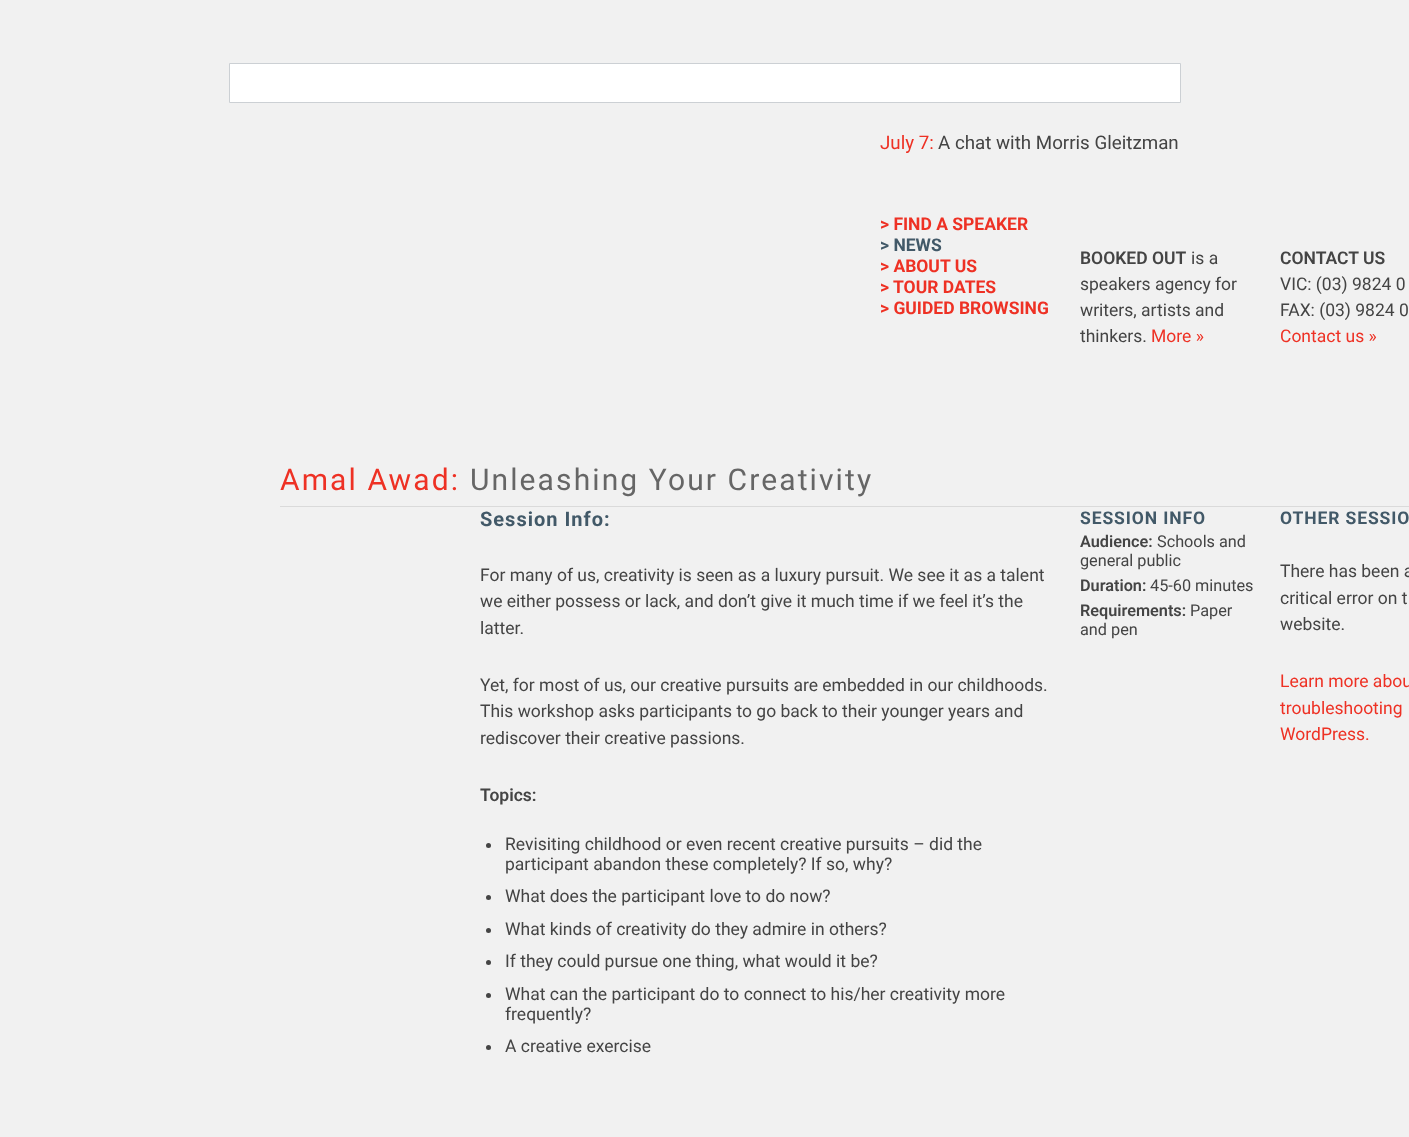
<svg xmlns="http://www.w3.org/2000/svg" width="1409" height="1137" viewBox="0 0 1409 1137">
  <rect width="100%" height="100%" fill="#f1f1f1"/>
  <path d="M229.5 63.5h951v39H229.5z" fill="#fff" stroke="#ccd0d4"/>
  <path d="M280 506h1129v1H280z" fill="#dadada"/>
  <circle cx="488.5" cy="845.5" r="2.5" fill="#444"/>
  <circle cx="488.5" cy="897.5" r="2.5" fill="#444"/>
  <circle cx="488.5" cy="930.5" r="2.5" fill="#444"/>
  <circle cx="488.5" cy="962.5" r="2.5" fill="#444"/>
  <circle cx="488.5" cy="995.5" r="2.5" fill="#444"/>
  <circle cx="488.5" cy="1047.5" r="2.5" fill="#444"/>
  <text x="880" y="149" font-family="Roboto" font-size="18.75" fill="#ee3124">July 7:</text>
  <text x="938" y="149" font-family="Roboto" font-size="18.75" fill="#444">A chat with Morris Gleitzman</text>
  <text x="880" y="230" font-family="Roboto" font-size="17.5" font-weight="bold" fill="#ee3124">&gt; FIND A SPEAKER</text>
  <text x="880" y="251" font-family="Roboto" font-size="17.5" font-weight="bold" fill="#425968">&gt; NEWS</text>
  <g font-family="Roboto" font-size="17.5" font-weight="bold" fill="#ee3124">
    <text x="880" y="272">&gt; ABOUT US</text>
    <text x="880" y="293">&gt;</text>
    <text x="893" y="293">TOUR DATES</text>
    <text x="880" y="314">&gt; GUIDED BROWSING</text>
  </g>
  <text x="1080" y="264" font-family="Roboto" font-size="17.5" font-weight="600" fill="#444">BOOKED OUT</text>
  <g font-family="Roboto" font-size="17.5" fill="#444">
    <text x="1191" y="264">is a</text>
    <text x="1080" y="290">speakers agency for</text>
    <text x="1080" y="316">writers, artists and</text>
    <text x="1080" y="342">thinkers.</text>
  </g>
  <text x="1151" y="342" font-family="Roboto" font-size="17.5" fill="#ee3124">More »</text>
  <text x="1280" y="264" font-family="Roboto" font-size="17.5" font-weight="600" fill="#444">CONTACT US</text>
  <g font-family="Roboto" font-size="17.5" fill="#444">
    <text x="1280" y="290">VIC: (03) 9824 0</text>
    <text x="1280" y="316">FAX: (03) 9824 0</text>
  </g>
  <text x="1280" y="342" font-family="Roboto" font-size="17.5" fill="#ee3124">Contact us »</text>
  <text x="280" y="490" font-family="Roboto" font-size="30" letter-spacing="2.1" fill="#ee3124">Amal Awad:</text>
  <text x="470" y="490" font-family="Roboto" font-size="30" letter-spacing="2.1" fill="#666">Unleashing Your Creativity</text>
  <text x="480" y="526" font-family="Roboto" font-size="20" font-weight="bold" letter-spacing="1" fill="#425968">Session Info:</text>
  <g font-family="Roboto" font-size="17.5" fill="#444">
    <text x="480" y="581">For many of us, creativity is seen as a luxury pursuit. We see it as a talent</text>
    <text x="480" y="607">we either possess or lack, and don’t give it much time if we feel it’s the</text>
    <text x="480" y="634">latter.</text>
    <text x="480" y="691">Yet, for most of us, our creative pursuits are embedded in our childhoods.</text>
    <text x="480" y="717">This workshop asks participants to go back to their younger years and</text>
    <text x="480" y="744">rediscover their creative passions.</text>
  </g>
  <text x="480" y="801" font-family="Roboto" font-size="17.5" font-weight="600" fill="#444">Topics:</text>
  <g font-family="Roboto" font-size="17.5" fill="#444">
    <text x="505" y="850">Revisiting childhood or even recent creative pursuits – did the</text>
    <text x="505" y="870">participant abandon these completely? If so, why?</text>
    <text x="505" y="902">What does the participant love to do now?</text>
    <text x="505" y="935">What kinds of creativity do they admire in others?</text>
    <text x="505" y="967">If they could pursue one thing, what would it be?</text>
    <text x="505" y="1000">What can the participant do to connect to his/her creativity more</text>
    <text x="505" y="1020">frequently?</text>
    <text x="505" y="1052">A creative exercise</text>
  </g>
  <text x="1080" y="524" font-family="Roboto" font-size="17.5" font-weight="bold" letter-spacing="0.9" fill="#425968">SESSION INFO</text>
  <text x="1080" y="547" font-family="Roboto" font-size="16.25" font-weight="600" fill="#444">Audience:</text>
  <g font-family="Roboto" font-size="16.25" fill="#444">
    <text x="1157" y="547">Schools and</text>
    <text x="1080" y="566">general public</text>
  </g>
  <text x="1080" y="591" font-family="Roboto" font-size="16.25" font-weight="600" fill="#444">Duration:</text>
  <text x="1150" y="591" font-family="Roboto" font-size="16.25" fill="#444">45-60 minutes</text>
  <text x="1080" y="616" font-family="Roboto" font-size="16.25" font-weight="600" fill="#444">Requirements:</text>
  <g font-family="Roboto" font-size="16.25" fill="#444">
    <text x="1190" y="616">Paper</text>
    <text x="1080" y="635">and pen</text>
  </g>
  <text x="1280" y="524" font-family="Roboto" font-size="17.5" font-weight="bold" letter-spacing="0.9" fill="#425968">OTHER SESSIO</text>
  <g font-family="Roboto" font-size="17.5" fill="#444">
    <text x="1280" y="577">There has been a</text>
    <text x="1280" y="604">critical error on t</text>
    <text x="1280" y="630">website.</text>
  </g>
  <g font-family="Roboto" font-size="17.5" fill="#ee3124">
    <text x="1280" y="687">Learn more abou</text>
    <text x="1280" y="714">troubleshooting</text>
    <text x="1280" y="740">WordPress.</text>
  </g>
</svg>
